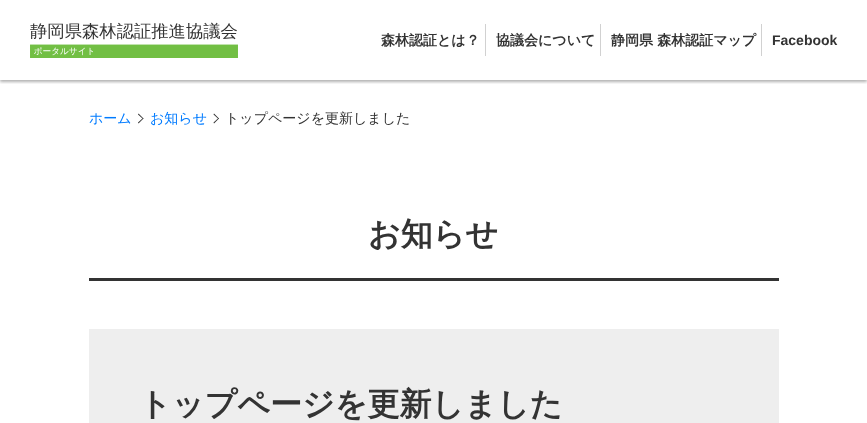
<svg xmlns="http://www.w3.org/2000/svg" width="867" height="423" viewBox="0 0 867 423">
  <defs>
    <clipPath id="clip1"><path d="M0 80h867v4H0z"/></clipPath>
  </defs>
  <rect width="100%" height="100%" fill="#fff"/>
  <g clip-path="url(#clip1)">
    <path d="M0 2h867v80H0z" fill="#0101014d" filter="blur(1.5px)"/>
  </g>
  <image x="30" y="22" width="208" height="36" href="img/1.png"/>
  <path d="M485 24h1v32H485z" fill="#d1d1d1"/>
  <path d="M600 24h1v32H600z" fill="#d1d1d1"/>
  <path d="M761 24h1v32H761z" fill="#d1d1d1"/>
  <path d="M138 114.5L138.5 113.5L143.5 118.5L143 119Z" fill="#333"/>
  <path d="M138 122.5L143 118L143.5 118.5L138.5 123.5Z" fill="#333"/>
  <path d="M213.5 114.5L214 113.5L219 118.5L218.5 119Z" fill="#333"/>
  <path d="M213.5 122.5L218.5 118L219 118.5L214 123.5Z" fill="#333"/>
  <path d="M89 278h690v3H89z" fill="#333"/>
  <path d="M89 329h690v94H89z" fill="#eee"/>
  <g font-family="WenQuanYi Zen Hei" font-size="14" font-weight="bold" fill="#333">
    <text x="381" y="45">森林認証とは？</text>
    <text x="496" y="45">協議会について</text>
    <text x="611" y="45">静岡県 森林認証マップ</text>
  </g>
  <text x="772" y="45" font-family="Liberation Sans" font-size="14" font-weight="bold" fill="#333">Facebook</text>
  <g font-family="WenQuanYi Zen Hei" font-size="14" font-weight="500" fill="#007bff">
    <text x="89" y="123">ホーム</text>
    <text x="150" y="123">お知らせ</text>
  </g>
  <text x="225" y="123" font-family="WenQuanYi Zen Hei" font-size="14" font-weight="500" fill="#333">トップページを更新しました</text>
  <g font-family="WenQuanYi Zen Hei" font-size="32" font-weight="bold" fill="#333">
    <text x="368" y="245">お知らせ</text>
    <text x="139" y="415">トップページを更新しました</text>
  </g>
</svg>
